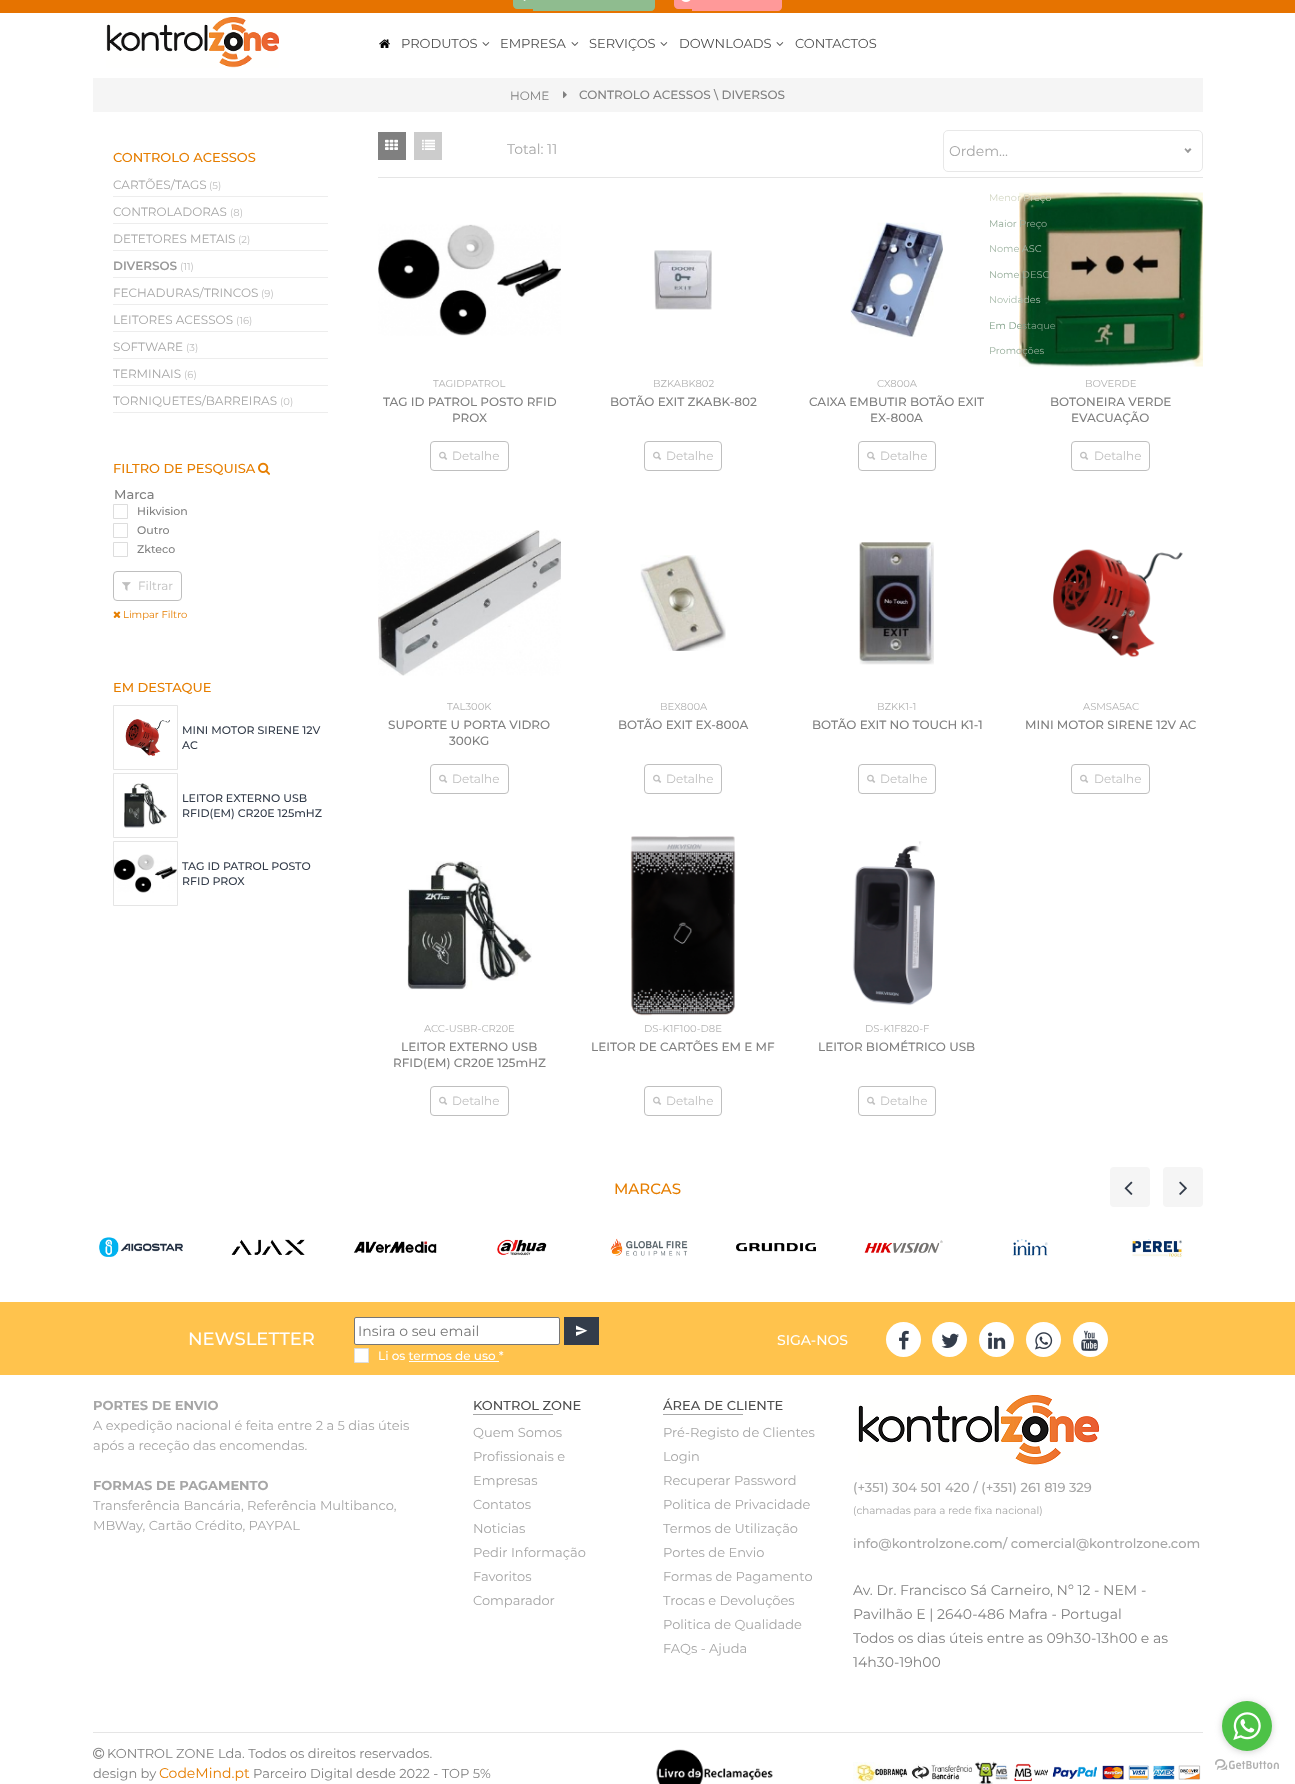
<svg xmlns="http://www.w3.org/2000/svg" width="1295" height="1784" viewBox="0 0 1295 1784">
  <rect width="100%" height="100%" fill="#fff"/>
  <path d="M0 0h1295v13H0z" fill="#e67300"/>
  <path d="M517-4H533V9H517C515 9 513 7 513 5V0C513-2 515-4 517-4Z" fill="#8fbc8f"/>
  <path d="M533-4H651C653-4 655-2 655 0V7C655 9 653 11 651 11H533Z" fill="#8fbc8f"/>
  <image x="523" y="0" width="3" height="1" href="img/1.png"/>
  <path d="M678-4H692V9H678C676 9 674 7 674 5V0C674-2 676-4 678-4Z" fill="#f99"/>
  <path d="M692-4H778C780-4 782-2 782 0V7C782 9 780 11 778 11H692Z" fill="#f99"/>
  <image x="681" y="0" width="10" height="2" href="img/2.png"/>
  <image x="106" y="17" width="173" height="51" href="img/3.png"/>
  <image x="379" y="39" width="11" height="9" href="img/4.png"/>
  <image x="482" y="42" width="8" height="4" href="img/5.png"/>
  <image x="571" y="42" width="8" height="4" href="img/5.png"/>
  <image x="660" y="42" width="8" height="4" href="img/5.png"/>
  <image x="776" y="42" width="8" height="4" href="img/5.png"/>
  <path d="M93 78h1110v34H93z" fill="#f5f5f5"/>
  <image x="563" y="91" width="4" height="8" href="img/6.png"/>
  <path d="M113 196h215v1H113z" fill="#ededed"/>
  <path d="M113 223h215v1H113z" fill="#ededed"/>
  <path d="M113 250h215v1H113z" fill="#ededed"/>
  <path d="M113 277h215v1H113z" fill="#ededed"/>
  <path d="M113 304h215v1H113z" fill="#ededed"/>
  <path d="M113 331h215v1H113z" fill="#ededed"/>
  <path d="M113 358h215v1H113z" fill="#ededed"/>
  <path d="M113 385h215v1H113z" fill="#ededed"/>
  <path d="M113 412h215v1H113z" fill="#ededed"/>
  <image x="258" y="462" width="12" height="13" href="img/7.png"/>
  <path d="M113.5 504.5h14v14H113.5z" fill="none" stroke="#ddd"/>
  <path d="M113.5 523.5h14v14H113.5z" fill="none" stroke="#ddd"/>
  <path d="M113.5 542.5h14v14H113.5z" fill="none" stroke="#ddd"/>
  <rect x="113.5" y="571.5" width="68" height="29" rx="3.5" fill="none" stroke="#bfbfbf"/>
  <image x="122" y="582" width="9" height="9" href="img/8.png"/>
  <image x="113" y="611" width="8" height="7" href="img/9.png"/>
  <path d="M113.5 705.5h64v64H113.5z" fill="none" stroke="#e5e5e5"/>
  <image x="125" y="719" width="45" height="37" href="img/10.png"/>
  <path d="M113.5 773.5h64v64H113.5z" fill="none" stroke="#e5e5e5"/>
  <image x="124" y="783" width="43" height="45" href="img/11.png"/>
  <path d="M113.5 841.5h64v64H113.5z" fill="none" stroke="#e5e5e5"/>
  <image x="114" y="854" width="63" height="39" href="img/12.png"/>
  <path d="M378 177h825v1H378z" fill="#e5e5e5"/>
  <path d="M378 132h28v28H378z" fill="#808080"/>
  <image x="385" y="139" width="13" height="11" href="img/13.png"/>
  <path d="M414 132h28v28H414z" fill="#ccc"/>
  <image x="422" y="139" width="13" height="11" href="img/14.png"/>
  <rect x="943.5" y="130.5" width="259" height="41" rx="4.5" fill="none" stroke="#e8e8e8"/>
  <path d="M1190 148L1191.5 149.5L1188 153L1186.5 151.5Z" fill="#999"/>
  <path d="M1185.5 148L1189 151.5L1188 153L1184.5 149.5Z" fill="#999"/>
  <image x="378" y="224" width="183" height="112" href="img/15.png"/>
  <rect x="430.5" y="441.5" width="78" height="29" rx="3.5" fill="none" stroke="#bfbfbf"/>
  <image x="439" y="451" width="9" height="9" href="img/16.png"/>
  <image x="654" y="250" width="58" height="60" href="img/17.png"/>
  <rect x="644.5" y="441.5" width="77" height="29" rx="3.5" fill="none" stroke="#bfbfbf"/>
  <image x="653" y="451" width="9" height="9" href="img/16.png"/>
  <image x="850" y="222" width="93" height="115" href="img/18.png"/>
  <rect x="858.5" y="441.5" width="77" height="29" rx="3.5" fill="none" stroke="#bfbfbf"/>
  <image x="867" y="451" width="9" height="9" href="img/16.png"/>
  <image x="1019" y="192" width="184" height="175" href="img/19.png"/>
  <rect x="1071.5" y="441.5" width="78" height="29" rx="3.5" fill="none" stroke="#bfbfbf"/>
  <image x="1080" y="451" width="9" height="9" href="img/16.png"/>
  <image x="378" y="530" width="183" height="146" href="img/20.png"/>
  <rect x="430.5" y="764.5" width="78" height="29" rx="3.5" fill="none" stroke="#bfbfbf"/>
  <image x="439" y="774" width="9" height="9" href="img/16.png"/>
  <image x="640" y="555" width="86" height="96" href="img/21.png"/>
  <rect x="644.5" y="764.5" width="77" height="29" rx="3.5" fill="none" stroke="#bfbfbf"/>
  <image x="653" y="774" width="9" height="9" href="img/16.png"/>
  <image x="859" y="542" width="75" height="123" href="img/22.png"/>
  <rect x="858.5" y="764.5" width="77" height="29" rx="3.5" fill="none" stroke="#bfbfbf"/>
  <image x="867" y="774" width="9" height="9" href="img/16.png"/>
  <image x="1053" y="549" width="130" height="109" href="img/23.png"/>
  <rect x="1071.5" y="764.5" width="78" height="29" rx="3.5" fill="none" stroke="#bfbfbf"/>
  <image x="1080" y="774" width="9" height="9" href="img/16.png"/>
  <image x="407" y="861" width="125" height="129" href="img/24.png"/>
  <rect x="430.5" y="1086.5" width="78" height="29" rx="3.5" fill="none" stroke="#bfbfbf"/>
  <image x="439" y="1096" width="9" height="9" href="img/16.png"/>
  <image x="630" y="836" width="106" height="180" href="img/25.png"/>
  <rect x="644.5" y="1086.5" width="77" height="29" rx="3.5" fill="none" stroke="#bfbfbf"/>
  <image x="653" y="1096" width="9" height="9" href="img/16.png"/>
  <image x="852" y="841" width="83" height="165" href="img/26.png"/>
  <rect x="858.5" y="1086.5" width="77" height="29" rx="3.5" fill="none" stroke="#bfbfbf"/>
  <image x="867" y="1096" width="9" height="9" href="img/16.png"/>
  <rect x="1110" y="1167" width="40" height="40" rx="4" fill="#f5f5f5"/>
  <image x="1124" y="1181" width="9" height="14" href="img/27.png"/>
  <rect x="1163" y="1167" width="40" height="40" rx="4" fill="#f5f5f5"/>
  <image x="1179" y="1181" width="8" height="14" href="img/28.png"/>
  <image x="99" y="1237" width="84" height="20" href="img/29.png"/>
  <image x="231" y="1239" width="74" height="16" href="img/30.png"/>
  <image x="353" y="1241" width="84" height="12" href="img/31.png"/>
  <image x="497" y="1239" width="50" height="17" href="img/32.png"/>
  <image x="610" y="1238" width="78" height="18" href="img/33.png"/>
  <image x="736" y="1243" width="80" height="9" href="img/34.png"/>
  <image x="864" y="1240" width="79" height="13" href="img/35.png"/>
  <image x="1012" y="1239" width="36" height="17" href="img/36.png"/>
  <image x="1132" y="1239" width="51" height="19" href="img/37.png"/>
  <path d="M0 1302h1295v73H0z" fill="#ffc34d"/>
  <rect x="354.5" y="1317.5" width="205" height="27" rx="1.5" fill="#fff" stroke="#767676"/>
  <path d="M564 1317h35v28H564z" fill="#333c4a"/>
  <image x="576" y="1325" width="12" height="11" href="img/38.png"/>
  <path d="M354.5 1348.5h14v14H354.5z" fill="#fff" stroke="#ddd"/>
  <path d="M409 1361h90v1H409z" fill="#fff"/>
  <circle cx="903.5" cy="1339.5" r="17.5" fill="#fff"/>
  <image x="899" y="1330" width="10" height="20" href="img/39.png"/>
  <circle cx="949.5" cy="1339.5" r="17.5" fill="#fff"/>
  <image x="941" y="1333" width="18" height="15" href="img/40.png"/>
  <circle cx="996.5" cy="1339.5" r="17.5" fill="#fff"/>
  <image x="988" y="1332" width="18" height="17" href="img/41.png"/>
  <circle cx="1043.5" cy="1339.5" r="17.5" fill="#fff"/>
  <image x="1035" y="1332" width="18" height="18" href="img/42.png"/>
  <circle cx="1090.5" cy="1339.5" r="17.5" fill="#fff"/>
  <image x="1081" y="1330" width="17" height="21" href="img/43.png"/>
  <path d="M473 1414h80v1H473z" fill="#a6a6a6"/>
  <path d="M663 1414h80v1H663z" fill="#a6a6a6"/>
  <image x="858" y="1395" width="241" height="70" href="img/44.png"/>
  <path d="M93 1732h1110v1H93z" fill="#e5e5e5"/>
  <image x="93" y="1747" width="12" height="12" href="img/45.png"/>
  <image x="656" y="1749" width="117" height="35" href="img/46.png"/>
  <image x="853" y="1761" width="348" height="23" href="img/47.png"/>
  <image x="1215" y="1759" width="64" height="11" href="img/49.png"/>
  <rect x="1222" y="1702" width="50" height="50" rx="25" fill="#88888866" filter="blur(3.5px)"/>
  <circle cx="1247" cy="1726" r="25" fill="#4dc247"/>
  <image x="1233" y="1712" width="28" height="28" href="img/48.png"/>
  <g font-family="Montserrat" font-size="13" fill="#4d4d4d">
    <text x="401" y="48">PRODUTOS</text>
    <text x="500" y="48">EMPRESA</text>
    <text x="589" y="48">SERVIÇOS</text>
    <text x="679" y="48">DOWNLOADS</text>
    <text x="795" y="48">CONTACTOS</text>
  </g>
  <text x="510" y="100" font-family="Montserrat" font-size="12" fill="#808080">HOME</text>
  <text x="579" y="99" font-family="Montserrat" font-size="12" font-weight="500" fill="#808080">CONTROLO ACESSOS \ DIVERSOS</text>
  <text x="113" y="162" font-family="Montserrat" font-size="13" font-weight="500" fill="#e67e00">CONTROLO ACESSOS</text>
  <text x="113" y="189" font-family="Montserrat" font-size="12" fill="#a6a6a6">CARTÕES/TAGS</text>
  <text x="209" y="189" font-family="Montserrat" font-size="10" fill="#bfbfbf">(5)</text>
  <text x="113" y="216" font-family="Montserrat" font-size="12" fill="#a6a6a6">CONTROLADORAS</text>
  <text x="230" y="216" font-family="Montserrat" font-size="10" fill="#bfbfbf">(8)</text>
  <text x="113" y="243" font-family="Montserrat" font-size="12" fill="#a6a6a6">DETETORES METAIS</text>
  <text x="238" y="243" font-family="Montserrat" font-size="10" fill="#bfbfbf">(2)</text>
  <text x="113" y="270" font-family="Montserrat" font-size="12" font-weight="600" fill="#999">DIVERSOS</text>
  <text x="180" y="270" font-family="Montserrat" font-size="10" fill="#bfbfbf">(11)</text>
  <text x="113" y="297" font-family="Montserrat" font-size="12" fill="#a6a6a6">FECHADURAS/TRINCOS</text>
  <text x="261" y="297" font-family="Montserrat" font-size="10" fill="#bfbfbf">(9)</text>
  <text x="113" y="324" font-family="Montserrat" font-size="12" fill="#a6a6a6">LEITORES ACESSOS</text>
  <text x="236" y="324" font-family="Montserrat" font-size="10" fill="#bfbfbf">(16)</text>
  <text x="113" y="351" font-family="Montserrat" font-size="12" fill="#a6a6a6">SOFTWARE</text>
  <text x="186" y="351" font-family="Montserrat" font-size="10" fill="#bfbfbf">(3)</text>
  <text x="113" y="378" font-family="Montserrat" font-size="12" fill="#a6a6a6">TERMINAIS</text>
  <text x="184" y="378" font-family="Montserrat" font-size="10" fill="#bfbfbf">(6)</text>
  <text x="113" y="405" font-family="Montserrat" font-size="12" fill="#a6a6a6">TORNIQUETES/BARREIRAS</text>
  <text x="280" y="405" font-family="Montserrat" font-size="10" fill="#bfbfbf">(0)</text>
  <text x="113" y="473" font-family="Montserrat" font-size="13" font-weight="500" fill="#e67e00">FILTRO DE PESQUISA</text>
  <text x="114" y="499" font-family="Montserrat" font-size="13" font-weight="500" fill="#808080">Marca</text>
  <g font-family="Montserrat" font-size="11" font-weight="500" fill="#808080">
    <text x="137" y="515">Hikvision</text>
    <text x="137" y="534">Outro</text>
    <text x="137" y="553">Zkteco</text>
  </g>
  <text x="138" y="590" font-family="Montserrat" font-size="12" fill="#bfbfbf">Filtrar</text>
  <text x="123" y="618" font-family="Montserrat" font-size="10" fill="#e67e00">Limpar Filtro</text>
  <text x="113" y="692" font-family="Montserrat" font-size="13" font-weight="500" fill="#e67e00">EM DESTAQUE</text>
  <g font-family="Montserrat" font-size="11" font-weight="500" fill="#333c4a">
    <text x="182" y="734">MINI MOTOR SIRENE 12V</text>
    <text x="182" y="749">AC</text>
    <text x="182" y="802">LEITOR EXTERNO USB</text>
    <text x="182" y="817">RFID(EM) CR20E 125mHZ</text>
    <text x="182" y="870">TAG ID PATROL POSTO</text>
    <text x="182" y="885">RFID PROX</text>
  </g>
  <g font-family="Montserrat" font-size="14" fill="#a6a6a6">
    <text x="507" y="154">Total: 11</text>
    <text x="949" y="156">Ordem...</text>
  </g>
  <text x="989" y="201" font-family="Montserrat" font-size="9.75" fill="#d3d7c4">Menor Preço</text>
  <text x="989" y="227" font-family="Montserrat" font-size="9.75" fill="#95ac99">Maior Preço</text>
  <text x="989" y="252" font-family="Montserrat" font-size="9.75" fill="#a3b7a6">Nome ASC</text>
  <text x="989" y="278" font-family="Montserrat" font-size="9.75" fill="#95ac99">Nome DESC</text>
  <text x="989" y="303" font-family="Montserrat" font-size="9.75" fill="#aabcac">Novidades</text>
  <text x="989" y="329" font-family="Montserrat" font-size="9.75" fill="#7f9e87">Em Destaque</text>
  <text x="989" y="354" font-family="Montserrat" font-size="9.75" fill="#95ac99">Promoções</text>
  <text x="433" y="387" font-family="Montserrat" font-size="10" fill="#b3b3b3">TAGIDPATROL</text>
  <g font-family="Montserrat" font-size="12" font-weight="500" fill="#808080">
    <text x="383" y="406">TAG ID PATROL POSTO RFID</text>
    <text x="452" y="422">PROX</text>
  </g>
  <text x="452" y="460" font-family="Montserrat" font-size="12" fill="#bfbfbf">Detalhe</text>
  <text x="653" y="387" font-family="Montserrat" font-size="10" fill="#b3b3b3">BZKABK802</text>
  <text x="610" y="406" font-family="Montserrat" font-size="12" font-weight="500" fill="#808080">BOTÃO EXIT ZKABK-802</text>
  <text x="666" y="460" font-family="Montserrat" font-size="12" fill="#bfbfbf">Detalhe</text>
  <text x="877" y="387" font-family="Montserrat" font-size="10" fill="#b3b3b3">CX800A</text>
  <g font-family="Montserrat" font-size="12" font-weight="500" fill="#808080">
    <text x="809" y="406">CAIXA EMBUTIR BOTÃO EXIT</text>
    <text x="870" y="422">EX-800A</text>
  </g>
  <text x="880" y="460" font-family="Montserrat" font-size="12" fill="#bfbfbf">Detalhe</text>
  <text x="1085" y="387" font-family="Montserrat" font-size="10" fill="#b3b3b3">BOVERDE</text>
  <g font-family="Montserrat" font-size="12" font-weight="500" fill="#808080">
    <text x="1050" y="406">BOTONEIRA VERDE</text>
    <text x="1071" y="422">EVACUAÇÃO</text>
  </g>
  <text x="1094" y="460" font-family="Montserrat" font-size="12" fill="#bfbfbf">Detalhe</text>
  <text x="447" y="710" font-family="Montserrat" font-size="10" fill="#b3b3b3">TAL300K</text>
  <g font-family="Montserrat" font-size="12" font-weight="500" fill="#808080">
    <text x="388" y="729">SUPORTE U PORTA VIDRO</text>
    <text x="449" y="745">300KG</text>
  </g>
  <text x="452" y="783" font-family="Montserrat" font-size="12" fill="#bfbfbf">Detalhe</text>
  <text x="660" y="710" font-family="Montserrat" font-size="10" fill="#b3b3b3">BEX800A</text>
  <text x="618" y="729" font-family="Montserrat" font-size="12" font-weight="500" fill="#808080">BOTÃO EXIT EX-800A</text>
  <text x="666" y="783" font-family="Montserrat" font-size="12" fill="#bfbfbf">Detalhe</text>
  <text x="877" y="710" font-family="Montserrat" font-size="10" fill="#b3b3b3">BZKK1-1</text>
  <text x="812" y="729" font-family="Montserrat" font-size="12" font-weight="500" fill="#808080">BOTÃO EXIT NO TOUCH K1-1</text>
  <text x="880" y="783" font-family="Montserrat" font-size="12" fill="#bfbfbf">Detalhe</text>
  <text x="1083" y="710" font-family="Montserrat" font-size="10" fill="#b3b3b3">ASMSA5AC</text>
  <text x="1025" y="729" font-family="Montserrat" font-size="12" font-weight="500" fill="#808080">MINI MOTOR SIRENE 12V AC</text>
  <text x="1094" y="783" font-family="Montserrat" font-size="12" fill="#bfbfbf">Detalhe</text>
  <text x="424" y="1032" font-family="Montserrat" font-size="10" fill="#b3b3b3">ACC-USBR-CR20E</text>
  <g font-family="Montserrat" font-size="12" font-weight="500" fill="#808080">
    <text x="401" y="1051">LEITOR EXTERNO USB</text>
    <text x="393" y="1067">RFID(EM) CR20E 125mHZ</text>
  </g>
  <text x="452" y="1105" font-family="Montserrat" font-size="12" fill="#bfbfbf">Detalhe</text>
  <text x="644" y="1032" font-family="Montserrat" font-size="10" fill="#b3b3b3">DS-K1F100-D8E</text>
  <text x="591" y="1051" font-family="Montserrat" font-size="12" font-weight="500" fill="#808080">LEITOR DE CARTÕES EM E MF</text>
  <text x="666" y="1105" font-family="Montserrat" font-size="12" fill="#bfbfbf">Detalhe</text>
  <text x="865" y="1032" font-family="Montserrat" font-size="10" fill="#b3b3b3">DS-K1F820-F</text>
  <text x="818" y="1051" font-family="Montserrat" font-size="12" font-weight="500" fill="#808080">LEITOR BIOMÉTRICO USB</text>
  <text x="880" y="1105" font-family="Montserrat" font-size="12" fill="#bfbfbf">Detalhe</text>
  <text x="614" y="1194" font-family="Montserrat" font-size="15" font-weight="500" fill="#e67e00">MARCAS</text>
  <text x="188" y="1345" font-family="Montserrat" font-size="18" font-weight="500" fill="#fff">NEWSLETTER</text>
  <text x="358" y="1336" font-family="Montserrat" font-size="14" fill="#757575">Insira o seu email</text>
  <text x="378" y="1360" font-family="Montserrat" font-size="12" font-weight="500" fill="#fff">Li os termos de uso *</text>
  <text x="777" y="1345" font-family="Montserrat" font-size="14" font-weight="500" fill="#fff">SIGA-NOS</text>
  <text x="93" y="1410" font-family="Montserrat" font-size="13" font-weight="bold" fill="#a6a6a6">PORTES DE ENVIO</text>
  <g font-family="Montserrat" font-size="13" fill="#a6a6a6">
    <text x="93" y="1430">A expedição nacional é feita entre 2 a 5 dias úteis</text>
    <text x="93" y="1450">após a receção das encomendas.</text>
  </g>
  <text x="93" y="1490" font-family="Montserrat" font-size="13" font-weight="bold" fill="#a6a6a6">FORMAS DE PAGAMENTO</text>
  <g font-family="Montserrat" font-size="13" fill="#a6a6a6">
    <text x="93" y="1510">Transferência Bancária, Referência Multibanco,</text>
    <text x="93" y="1530">MBWay, Cartão Crédito, PAYPAL</text>
  </g>
  <text x="473" y="1410" font-family="Montserrat" font-size="13" font-weight="500" fill="#4d4d4d">KONTROL ZONE</text>
  <g font-family="Montserrat" font-size="13" fill="#a6a6a6">
    <text x="473" y="1437">Quem Somos</text>
    <text x="473" y="1461">Profissionais e</text>
    <text x="473" y="1485">Empresas</text>
    <text x="473" y="1509">Contatos</text>
    <text x="473" y="1533">Noticias</text>
    <text x="473" y="1557">Pedir Informação</text>
    <text x="473" y="1581">Favoritos</text>
    <text x="473" y="1605">Comparador</text>
  </g>
  <text x="663" y="1410" font-family="Montserrat" font-size="13" font-weight="500" fill="#4d4d4d">ÁREA DE CLIENTE</text>
  <g font-family="Montserrat" font-size="13" fill="#a6a6a6">
    <text x="663" y="1437">Pré-Registo de Clientes</text>
    <text x="663" y="1461">Login</text>
    <text x="663" y="1485">Recuperar Password</text>
    <text x="663" y="1509">Politica de Privacidade</text>
    <text x="663" y="1533">Termos de Utilização</text>
    <text x="663" y="1557">Portes de Envio</text>
    <text x="663" y="1581">Formas de Pagamento</text>
    <text x="663" y="1605">Trocas e Devoluções</text>
    <text x="663" y="1629">Politica de Qualidade</text>
    <text x="663" y="1653">FAQs - Ajuda</text>
  </g>
  <text x="853" y="1492" font-family="Montserrat" font-size="13" font-weight="500" fill="#a6a6a6">(+351) 304 501 420 / (+351) 261 819 329</text>
  <text x="853" y="1514" font-family="Montserrat" font-size="10.4" fill="#a6a6a6">(chamadas para a rede fixa nacional)</text>
  <text x="853" y="1548" font-family="Montserrat" font-size="13" font-weight="500" fill="#a6a6a6">info@kontrolzone.com/ comercial@kontrolzone.com</text>
  <g font-family="Montserrat" font-size="14" fill="#808080">
    <text x="853" y="1595">Av. Dr. Francisco Sá Carneiro, Nº 12 - NEM -</text>
    <text x="853" y="1619">Pavilhão E | 2640-486 Mafra - Portugal</text>
    <text x="853" y="1643">Todos os dias úteis entre as 09h30-13h00 e as</text>
    <text x="853" y="1667">14h30-19h00</text>
  </g>
  <g font-family="Montserrat" font-size="13" fill="#808080">
    <text x="107" y="1758">KONTROL ZONE Lda. Todos os direitos reservados.</text>
    <text x="93" y="1778">design by</text>
  </g>
  <text x="159" y="1778" font-family="Montserrat" font-size="14" fill="#e67e00">CodeMind.pt</text>
  <text x="253" y="1778" font-family="Montserrat" font-size="13" fill="#808080">Parceiro Digital desde 2022 - TOP 5%</text>
</svg>
